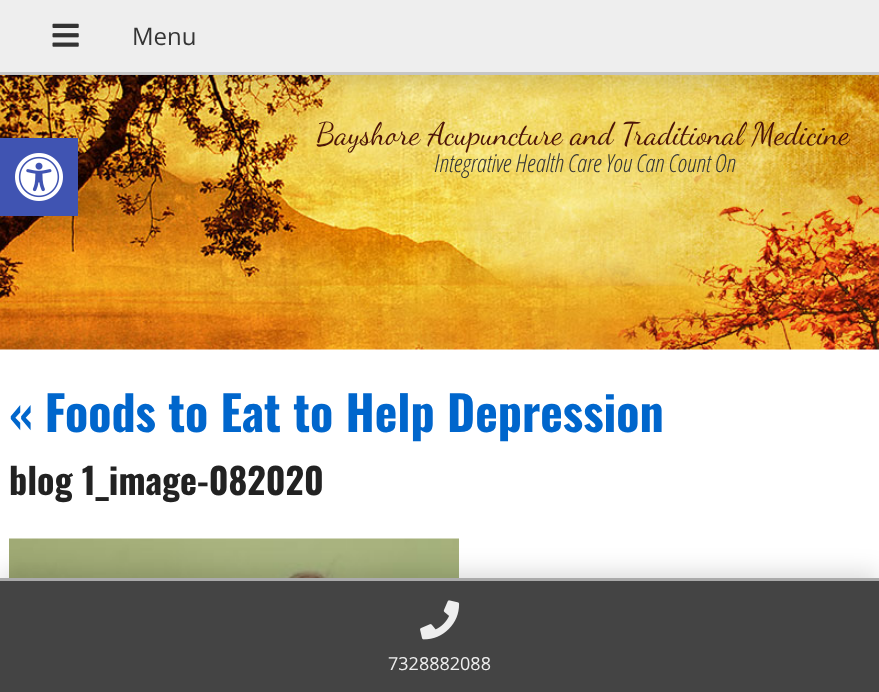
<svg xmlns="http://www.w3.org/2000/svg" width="879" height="692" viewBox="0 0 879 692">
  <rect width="100%" height="100%" fill="#fff"/>
  <image x="0" y="75" width="879" height="275" href="img/2.png"/>
  <path d="M0 5h879v75H0z" fill="#00000026" filter="blur(12px)"/>
  <path d="M0 0h879v72H0z" fill="#eee"/>
  <path d="M0 72h879v3H0z" fill="#c6c6c6"/>
  <image x="52" y="23" width="27" height="24" href="img/1.png"/>
  <image x="9" y="538" width="450" height="40" href="img/3.png"/>
  <path d="M0 138h78v78H0z" fill="#0000001a" filter="blur(7.5px)"/>
  <path d="M0 138h78v78H0z" fill="#4054b2"/>
  <image x="15" y="153" width="48" height="48" href="img/4.png"/>
  <path d="M0 573h879v116H0z" fill="#00000026" filter="blur(12px)"/>
  <path d="M0 581h879v111H0z" fill="#444"/>
  <path d="M0 578h879v3H0z" fill="#aaa"/>
  <image x="420" y="600" width="40" height="40" href="img/5.png"/>
  <text x="132" y="45" font-family="Open Sans" font-size="24" fill="#353535">Menu</text>
  <text x="316" y="144" font-family="Dancing Script" font-size="31.1" fill="#4c1408">Bayshore Acupuncture and Traditional Medicine</text>
  <text x="434" y="172" font-family="Open Sans Condensed" font-size="24.75" font-weight="300" font-style="italic" fill="#353535">Integrative Health Care You Can Count On</text>
  <text x="9" y="432" font-family="Oswald" font-size="48" font-weight="bold" fill="#06c">« Foods to Eat to Help Depression</text>
  <text x="9" y="495" font-family="Oswald" font-size="36" font-weight="bold" fill="#222">blog 1_image-082020</text>
  <text x="388" y="670" font-family="Open Sans" font-size="18" fill="#eee">7328882088</text>
</svg>
